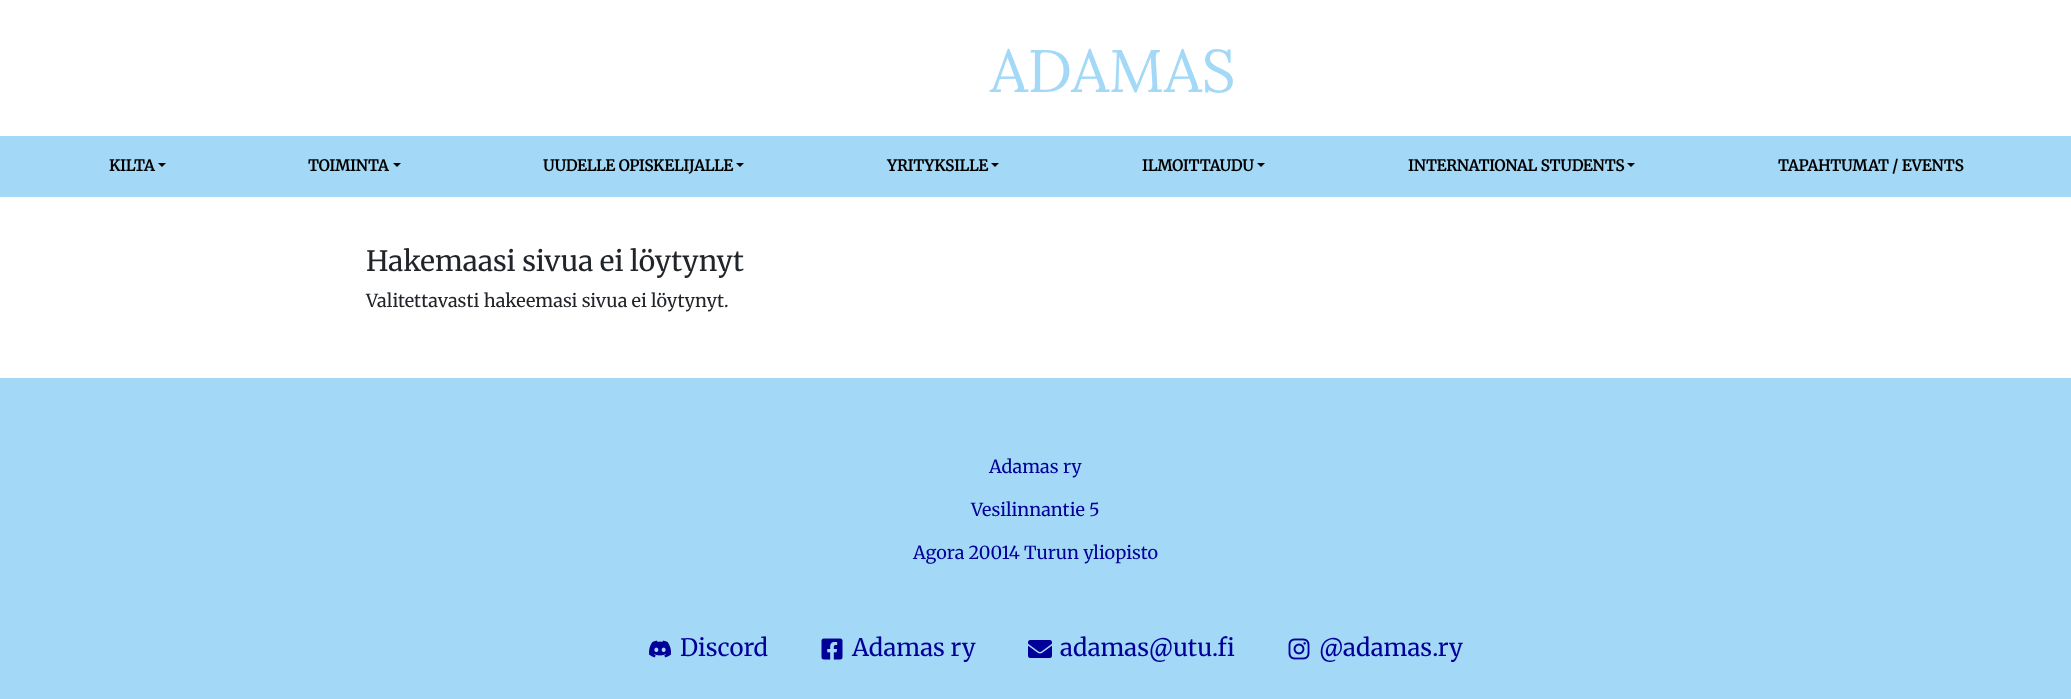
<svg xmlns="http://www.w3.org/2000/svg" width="2071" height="699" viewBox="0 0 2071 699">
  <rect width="100%" height="100%" fill="#fff"/>
  <path d="M0 136h2071v61H0z" fill="#a3d9f7"/>
  <path d="M158 163H166L162 167Z" fill="#000"/>
  <path d="M393 163H401L397 167Z" fill="#000"/>
  <path d="M736 163H744L740 167Z" fill="#000"/>
  <path d="M991 163H999L995 167Z" fill="#000"/>
  <path d="M1257 163H1265L1261 167Z" fill="#000"/>
  <path d="M1627 163H1635L1631 167Z" fill="#000"/>
  <path d="M0 378h2071v321H0z" fill="#a3d9f7"/>
  <image x="649" y="640" width="22" height="18" href="img/1.png"/>
  <image x="821" y="638" width="22" height="22" href="img/2.png"/>
  <image x="1028" y="640" width="24" height="18" href="img/3.png"/>
  <image x="1288" y="638" width="22" height="22" href="img/4.png"/>
  <text x="990" y="92" font-family="Lora" font-size="60" fill="#a3d9f7">ADAMAS</text>
  <g font-family="Merriweather" font-size="15.25" font-weight="bold" fill="#000">
    <text x="109" y="171">KILTA</text>
    <text x="308" y="171">TOIMINTA</text>
    <text x="543" y="171">UUDELLE OPISKELIJALLE</text>
    <text x="887" y="171">YRITYKSILLE</text>
    <text x="1142" y="171">ILMOITTAUDU</text>
    <text x="1408" y="171">INTERNATIONAL STUDENTS</text>
    <text x="1778" y="171">TAPAHTUMAT / EVENTS</text>
  </g>
  <text x="366" y="271" font-family="Merriweather" font-size="28" font-weight="300" fill="#212529">Hakemaasi sivua ei löytynyt</text>
  <text x="366" y="307" font-family="Merriweather" font-size="18" font-weight="300" fill="#212529">Valitettavasti hakeemasi sivua ei löytynyt.</text>
  <g font-family="Merriweather" font-size="18" font-weight="300" fill="#009">
    <text x="989" y="473">Adamas ry</text>
    <text x="971" y="516">Vesilinnantie 5</text>
    <text x="913" y="559">Agora 20014 Turun yliopisto</text>
  </g>
  <g font-family="Merriweather" font-size="24" font-weight="300" fill="#009">
    <text x="680" y="656">Discord</text>
    <text x="852" y="656">Adamas ry</text>
    <text x="1060" y="656">adamas@utu.fi</text>
    <text x="1319" y="656">@adamas.ry</text>
  </g>
</svg>
